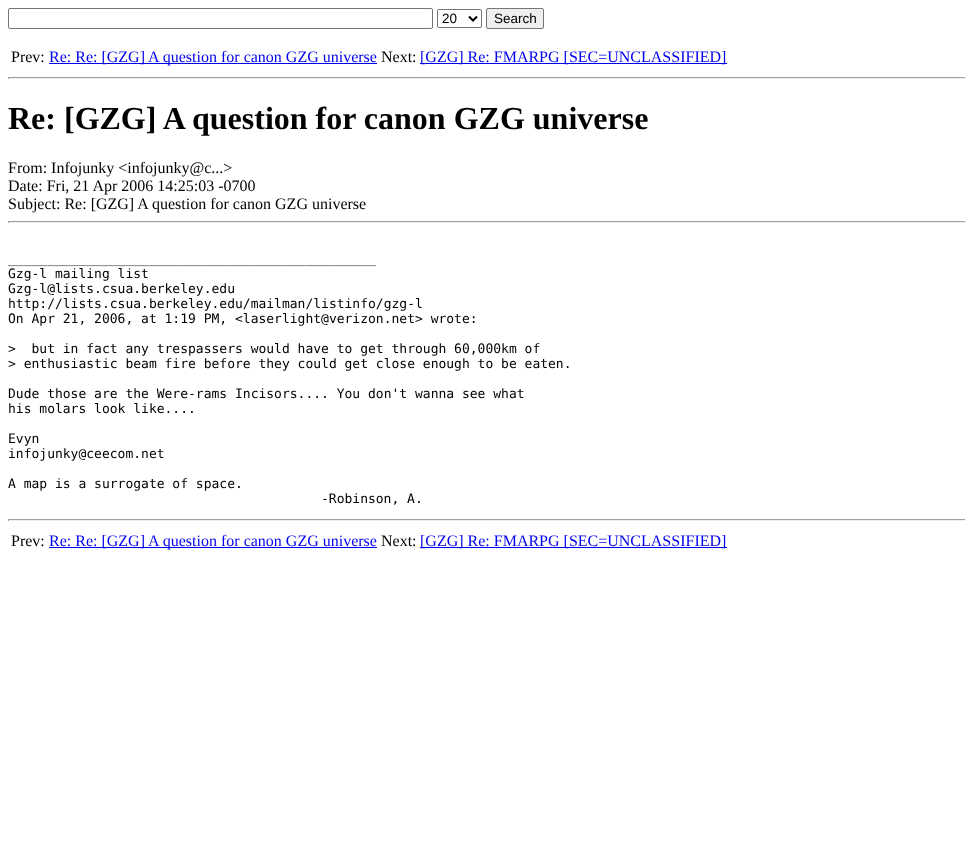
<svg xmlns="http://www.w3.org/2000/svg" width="974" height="854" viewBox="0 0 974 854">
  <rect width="100%" height="100%" fill="#fff"/>
  <rect x="8.5" y="8.5" width="424" height="20" rx="1.5" fill="none" stroke="#767676"/>
  <rect x="437.5" y="9.5" width="44" height="18" rx="1.5" fill="none" stroke="#767676"/>
  <path d="M469 16.5L473 20.5L477 16.5" fill="none" stroke="#000" stroke-width="2"/>
  <rect x="486.5" y="8.5" width="57" height="20" rx="1.5" fill="#efefef" stroke="#767676"/>
  <path d="M49 63h328v1H49z" fill="#00e"/>
  <path d="M420 63h307v1H420z" fill="#00e"/>
  <path d="M8 77h958v1H8z" fill="#9f9f9f"/>
  <path d="M965 77h1v2H965z" fill="#eee"/>
  <path d="M8 78h958v1H8z" fill="#eee"/>
  <path d="M8 77h1v2H8z" fill="#9f9f9f"/>
  <path d="M8 221h958v1H8z" fill="#9f9f9f"/>
  <path d="M965 221h1v2H965z" fill="#eee"/>
  <path d="M8 222h958v1H8z" fill="#eee"/>
  <path d="M8 221h1v2H8z" fill="#9f9f9f"/>
  <path d="M8 519h958v1H8z" fill="#9f9f9f"/>
  <path d="M965 519h1v2H965z" fill="#eee"/>
  <path d="M8 520h958v1H8z" fill="#eee"/>
  <path d="M8 519h1v2H8z" fill="#9f9f9f"/>
  <path d="M49 547h328v1H49z" fill="#00e"/>
  <path d="M420 547h307v1H420z" fill="#00e"/>
  <g font-family="Liberation Sans" font-size="13.5" fill="#000">
    <text x="442" y="23">20</text>
    <text x="494" y="23">Search</text>
  </g>
  <text x="11" y="62" font-family="Liberation Serif" font-size="16" fill="#000">Prev:</text>
  <text x="49" y="62" font-family="Liberation Serif" font-size="16" fill="#00e">Re: Re: [GZG] A question for canon GZG universe</text>
  <text x="381" y="62" font-family="Liberation Serif" font-size="16" fill="#000">Next:</text>
  <text x="420" y="62" font-family="Liberation Serif" font-size="16" fill="#00e">[GZG] Re: FMARPG [SEC=UNCLASSIFIED]</text>
  <text x="8" y="129" font-family="Liberation Serif" font-size="32" font-weight="bold" fill="#000">Re: [GZG] A question for canon GZG universe</text>
  <g font-family="Liberation Serif" font-size="16" fill="#000">
    <text x="8" y="173">From: Infojunky &lt;infojunky@c...&gt;</text>
    <text x="8" y="191">Date: Fri, 21 Apr 2006 14:25:03 -0700</text>
    <text x="8" y="209">Subject: Re: [GZG] A question for canon GZG universe</text>
  </g>
  <g font-family="DejaVu Sans Mono" font-size="13" fill="#000">
    <text x="8" y="263">_______________________________________________</text>
    <text x="8" y="278">Gzg-l mailing list</text>
    <text x="8" y="293">Gzg-l@lists.csua.berkeley.edu</text>
    <text x="8" y="308">http://lists.csua.berkeley.edu/mailman/listinfo/gzg-l</text>
    <text x="8" y="323">On Apr 21, 2006, at 1:19 PM, &lt;laserlight@verizon.net&gt; wrote:</text>
    <text x="8" y="353" xml:space="preserve">&gt;  but in fact any trespassers would have to get through 60,000km of</text>
    <text x="8" y="368">&gt; enthusiastic beam fire before they could get close enough to be eaten.</text>
    <text x="8" y="398">Dude those are the Were-rams Incisors.... You don't wanna see what</text>
    <text x="8" y="413">his molars look like....</text>
    <text x="8" y="443">Evyn</text>
    <text x="8" y="458">infojunky@ceecom.net</text>
    <text x="8" y="488">A map is a surrogate of space.</text>
    <text x="321" y="503">-Robinson, A.</text>
  </g>
  <text x="11" y="546" font-family="Liberation Serif" font-size="16" fill="#000">Prev:</text>
  <text x="49" y="546" font-family="Liberation Serif" font-size="16" fill="#00e">Re: Re: [GZG] A question for canon GZG universe</text>
  <text x="381" y="546" font-family="Liberation Serif" font-size="16" fill="#000">Next:</text>
  <text x="420" y="546" font-family="Liberation Serif" font-size="16" fill="#00e">[GZG] Re: FMARPG [SEC=UNCLASSIFIED]</text>
</svg>
